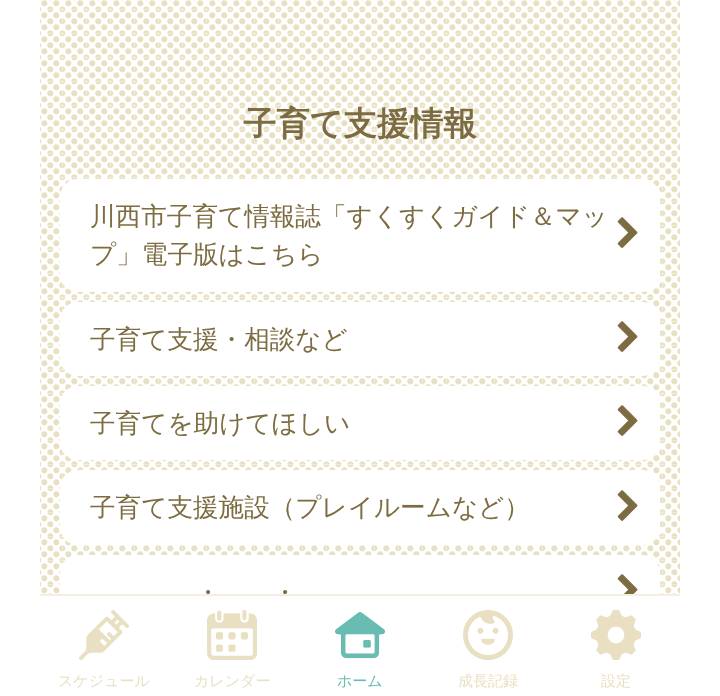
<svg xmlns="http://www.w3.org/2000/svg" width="720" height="696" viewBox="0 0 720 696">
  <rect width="100%" height="100%" fill="#fff"/>
  <image x="40" y="0" width="640" height="594" href="img/1.png"/>
  <rect x="60" y="179" width="600" height="113" rx="18" fill="#fff"/>
  <image x="617" y="217" width="21" height="31" href="img/2.png"/>
  <rect x="60" y="302" width="600" height="74" rx="18" fill="#fff"/>
  <image x="617" y="321" width="21" height="31" href="img/2.png"/>
  <rect x="60" y="386" width="600" height="74" rx="18" fill="#fff"/>
  <image x="617" y="405" width="21" height="31" href="img/2.png"/>
  <rect x="60" y="470" width="600" height="75" rx="18" fill="#fff"/>
  <image x="617" y="490" width="21" height="31" href="img/2.png"/>
  <rect x="60" y="555" width="600" height="74" rx="18" fill="#fff"/>
  <image x="617" y="574" width="21" height="20" href="img/3.png"/>
  <path d="M40 594h640v2H40z" fill="#f5eee5"/>
  <image x="79" y="610" width="50" height="50" href="img/4.png"/>
  <image x="207" y="610" width="50" height="50" href="img/5.png"/>
  <image x="335" y="612" width="50" height="47" href="img/6.png"/>
  <image x="463" y="610" width="50" height="50" href="img/7.png"/>
  <image x="591" y="610" width="50" height="50" href="img/8.png"/>
  <text x="243" y="135" font-family="WenQuanYi Zen Hei" font-size="33.25" font-weight="bold" fill="#7d6c41">子育て支援情報</text>
  <g font-family="WenQuanYi Zen Hei" font-size="25.6" font-weight="500" fill="#7d6c41">
    <text x="90" y="225">川西市子育て情報誌「すくすくガイド＆マッ</text>
    <text x="90" y="263">プ」電子版はこちら</text>
    <text x="90" y="348">子育て支援・相談など</text>
    <text x="90" y="432">子育てを助けてほしい</text>
    <text x="90" y="516">子育て支援施設（プレイルームなど）</text>
    <text x="195" y="601">・</text>
    <text x="272" y="601">・</text>
  </g>
  <g font-family="WenQuanYi Zen Hei" font-size="15" font-weight="500" fill="#e9e0c3">
    <text x="58" y="686">スケジュール</text>
    <text x="194" y="686">カレンダー</text>
  </g>
  <text x="337" y="686" font-family="WenQuanYi Zen Hei" font-size="15" font-weight="500" fill="#69bcb2">ホーム</text>
  <g font-family="WenQuanYi Zen Hei" font-size="15" font-weight="500" fill="#e9e0c3">
    <text x="458" y="686">成長記録</text>
    <text x="601" y="686">設定</text>
  </g>
</svg>
